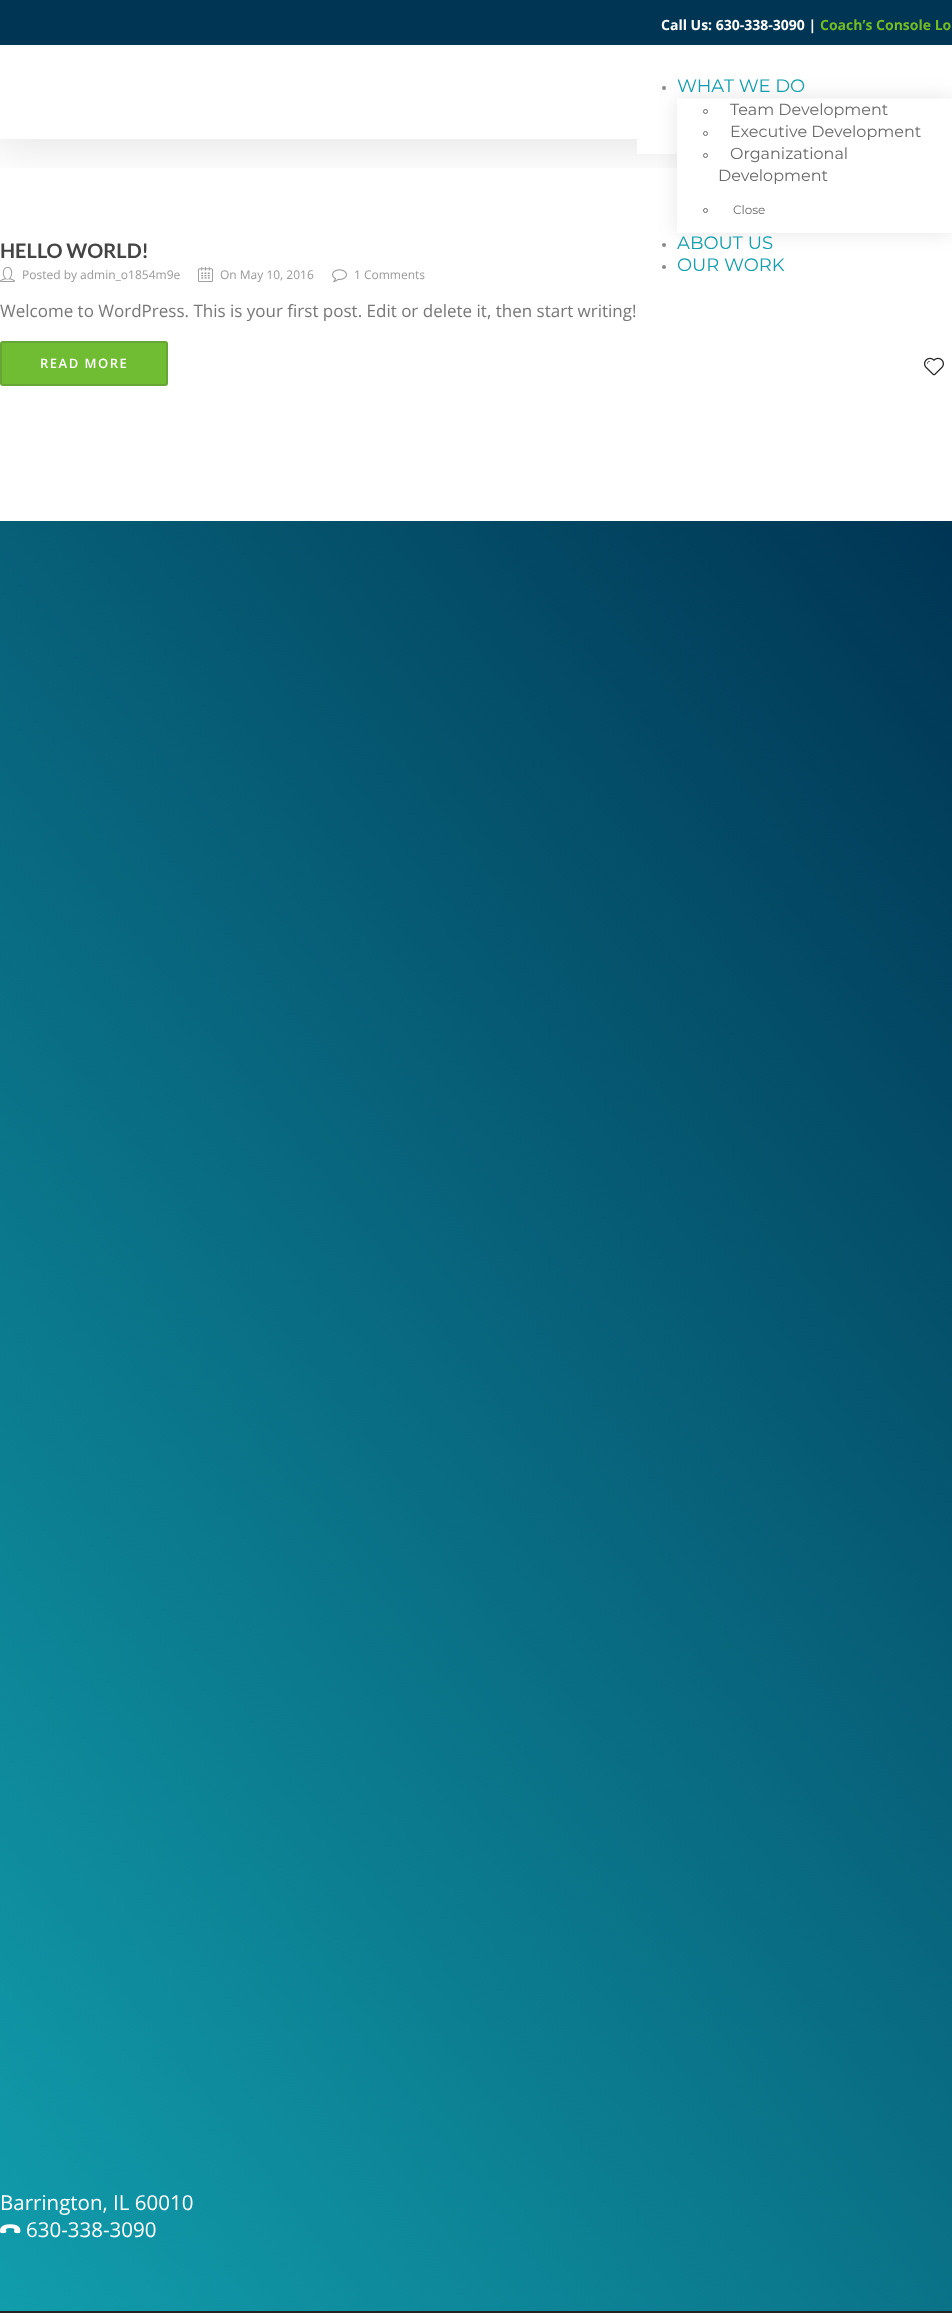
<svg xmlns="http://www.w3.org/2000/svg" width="952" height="2313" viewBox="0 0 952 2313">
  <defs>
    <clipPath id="clip1"><path d="M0 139h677v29H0z"/></clipPath>
    <linearGradient id="g1" gradientUnits="userSpaceOnUse" x1="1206" y1="846" x2="-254" y2="1986"><stop offset="0" stop-color="#003554"/><stop offset="1" stop-color="#119dac"/></linearGradient>
  </defs>
  <rect width="100%" height="100%" fill="#fff"/>
  <g clip-path="url(#clip1)">
    <path d="M-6 42h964v106H-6z" fill="#0000001a" filter="blur(24px)"/>
  </g>
  <path d="M0 0h952v45H0z" fill="#003554"/>
  <path d="M637 139h315v15H637z" fill="#fff"/>
  <path d="M677 98h275v135H677z" fill="#0000001a" filter="blur(10px)"/>
  <circle cx="664" cy="88" r="2" fill="#888"/>
  <path d="M678 99h273v134H678z" fill="#fff"/>
  <path d="M677 98h275v1H677z" fill="#f9f9f9"/>
  <path d="M951 98h1v135H951z" fill="#fff"/>
  <path d="M677 98h1v135H677z" fill="#fff"/>
  <circle cx="705.5" cy="111.5" r="2" fill="none" stroke="#686868"/>
  <circle cx="705.5" cy="133.5" r="2" fill="none" stroke="#686868"/>
  <circle cx="705.5" cy="155.5" r="2" fill="none" stroke="#686868"/>
  <circle cx="705.5" cy="210.5" r="2" fill="none" stroke="#686868"/>
  <circle cx="664" cy="245" r="2" fill="#888"/>
  <circle cx="664" cy="267" r="2" fill="#888"/>
  <image x="0" y="267" width="15" height="15" href="img/1.png"/>
  <image x="198" y="267" width="15" height="15" href="img/2.png"/>
  <image x="332" y="269" width="15" height="14" href="img/3.png"/>
  <rect y="341" width="168" height="45" rx="3" fill="#70bd34"/>
  <rect x="1" y="342" width="166" height="43" rx="2" fill="none" stroke="#44444433" stroke-width="2"/>
  <image x="924" y="357" width="20" height="19" href="img/4.png"/>
  <path d="M0 521h952v1790H0z" fill="url(#g1)"/>
  <image x="0" y="2224" width="21" height="10" href="img/5.png"/>
  <path d="M0 2311h952v2H0z" fill="#222"/>
  <text x="661" y="30" font-family="Open Sans" font-size="14" font-weight="bold" fill="#fff">Call Us: 630-338-3090 |</text>
  <text x="820" y="30" font-family="Open Sans" font-size="14" font-weight="bold" fill="#75bb25">Coach’s Console Lo</text>
  <text x="677" y="92" font-family="Montserrat" font-size="18" fill="#129eaf">WHAT WE DO</text>
  <g font-family="Montserrat" font-size="16" fill="#686868">
    <text x="730" y="115">Team Development</text>
    <text x="730" y="137">Executive Development</text>
    <text x="730" y="159">Organizational</text>
    <text x="718" y="181">Development</text>
  </g>
  <text x="733" y="214" font-family="Montserrat" font-size="12" fill="#686868">Close</text>
  <g font-family="Montserrat" font-size="18" fill="#129eaf">
    <text x="677" y="249">ABOUT US</text>
    <text x="677" y="271">OUR WORK</text>
  </g>
  <text x="0" y="258" font-family="Lato" font-size="20" font-weight="bold" fill="#444">HELLO WORLD!</text>
  <g font-family="Open Sans" font-size="12" fill="#999">
    <text x="22" y="279">Posted by admin_o1854m9e</text>
    <text x="220" y="279">On May 10, 2016</text>
    <text x="354" y="279">1 Comments</text>
  </g>
  <text x="0" y="317" font-family="Open Sans" font-size="17" fill="#777">Welcome to WordPress. This is your first post. Edit or delete it, then start writing!</text>
  <text x="40" y="368" font-family="Open Sans" font-size="13" font-weight="600" letter-spacing="1.5" fill="#fff">READ MORE</text>
  <g font-family="Open Sans" font-size="20.5" fill="#fff">
    <text x="0" y="2210">Barrington, IL 60010</text>
    <text x="26" y="2237">630-338-3090</text>
  </g>
</svg>
